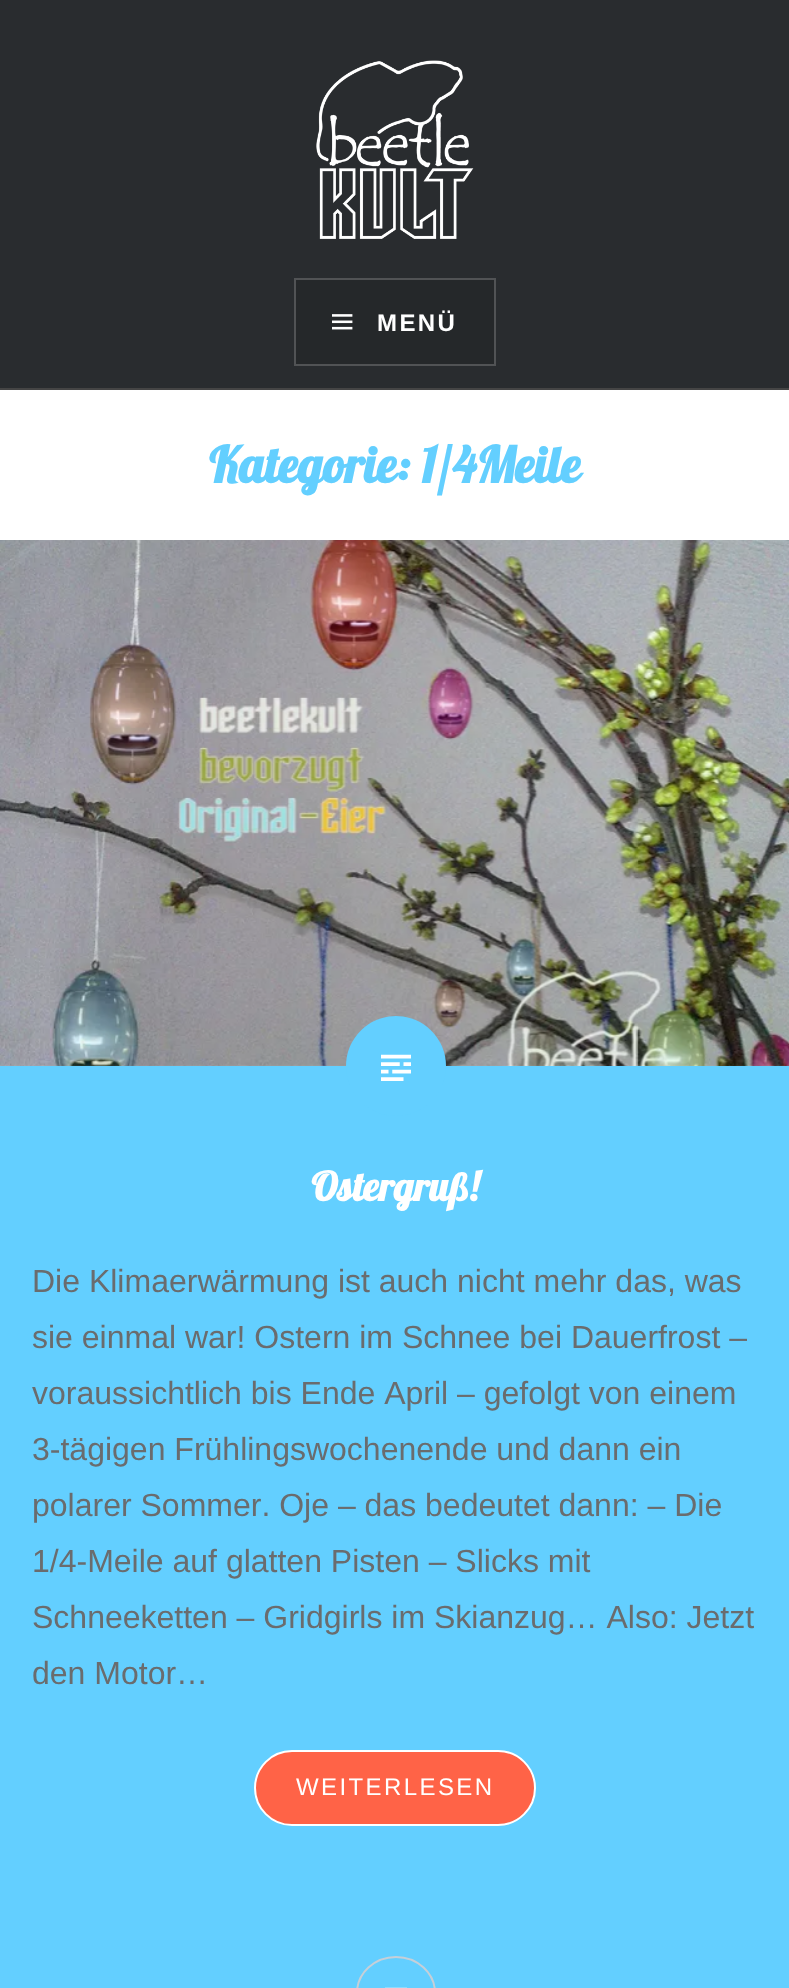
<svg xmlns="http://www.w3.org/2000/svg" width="789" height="1988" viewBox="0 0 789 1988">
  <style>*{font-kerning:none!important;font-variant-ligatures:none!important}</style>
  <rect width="100%" height="100%" fill="#fff"/>
  <path d="M0 0h789v388H0z" fill="#292c2f"/>
  <path d="M0 388h789v2H0z" fill="#454545"/>
  <image x="316" y="60" width="158" height="179" href="img/1.png"/>
  <path d="M295 279h200v86H295z" fill="#25282a" stroke="#515355" stroke-width="2"/>
  <image x="332" y="314" width="21" height="16" href="img/2.png"/>
  <image x="0" y="540" width="789" height="526" href="img/3.png"/>
  <path d="M0 1066h789v922H0z" fill="#63cfff"/>
  <circle cx="396" cy="1066" r="50" fill="#63cfff"/>
  <image x="381" y="1054" width="30" height="27" href="img/4.png"/>
  <rect x="255" y="1751" width="280" height="74" rx="37" fill="#ff6347" stroke="#fff" stroke-width="2"/>
  <rect x="357" y="1957" width="78" height="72" rx="39" fill="none" stroke="#c6cfd8" stroke-width="2"/>
  <path d="M385 1987h22v1H385z" fill="#8adbff"/>
  <text x="377" y="331" font-family="Liberation Sans" font-size="24" font-weight="bold" letter-spacing="2.4" fill="#fff">MENÜ</text>
  <text x="209" y="483" font-family="Lobster" font-size="50" font-weight="bold" fill="#63cfff">Kategorie: 1/4Meile</text>
  <text x="311" y="1201" font-family="Lobster" font-size="40" font-weight="bold" fill="#fff">Ostergruß!</text>
  <g font-family="Liberation Sans" font-size="32" fill="#6a6c6e">
    <text x="32" y="1292">Die Klimaerwärmung ist auch nicht mehr das, was</text>
    <text x="32" y="1348">sie einmal war! Ostern im Schnee bei Dauerfrost –</text>
    <text x="32" y="1404">voraussichtlich bis Ende April – gefolgt von einem</text>
    <text x="32" y="1460">3-tägigen Frühlingswochenende und dann ein</text>
    <text x="32" y="1516">polarer Sommer. Oje – das bedeutet dann: – Die</text>
    <text x="32" y="1572">1/4-Meile auf glatten Pisten – Slicks mit</text>
    <text x="32" y="1628">Schneeketten – Gridgirls im Skianzug… Also: Jetzt</text>
    <text x="32" y="1684">den Motor…</text>
  </g>
  <text x="296" y="1795" font-family="Liberation Sans" font-size="24" letter-spacing="2.4" fill="#fff">WEITERLESEN</text>
</svg>
